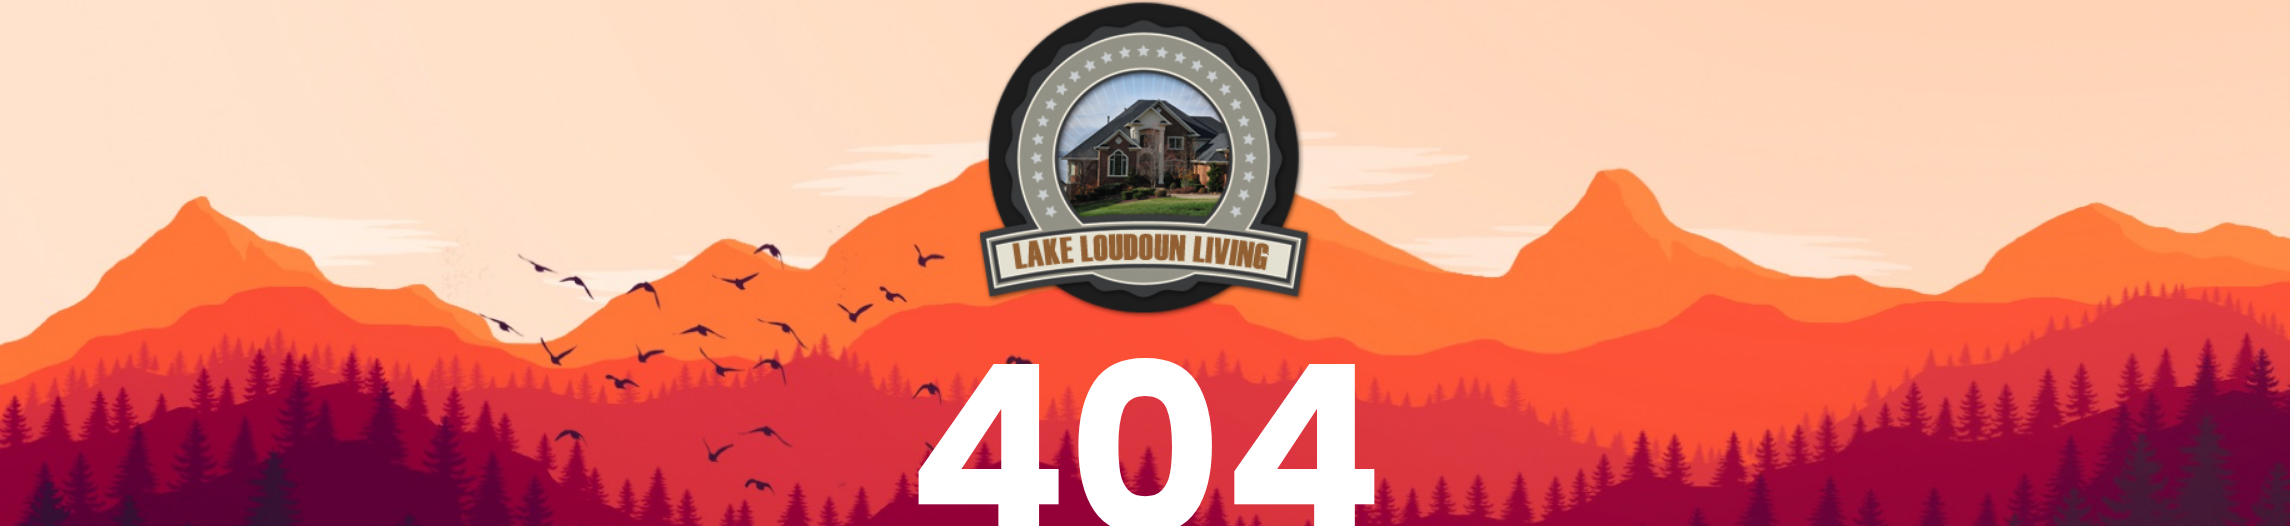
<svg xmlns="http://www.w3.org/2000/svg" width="2290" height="526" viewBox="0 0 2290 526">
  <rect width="100%" height="100%" fill="#fff"/>
  <image x="0" y="0" width="2290" height="526" href="img/1.png"/>
  <image x="977" y="0" width="336" height="318" href="img/2.png"/>
  <text x="907" y="535" font-family="Poppins" font-size="237.5" font-weight="bold" fill="#fff">404</text>
</svg>
